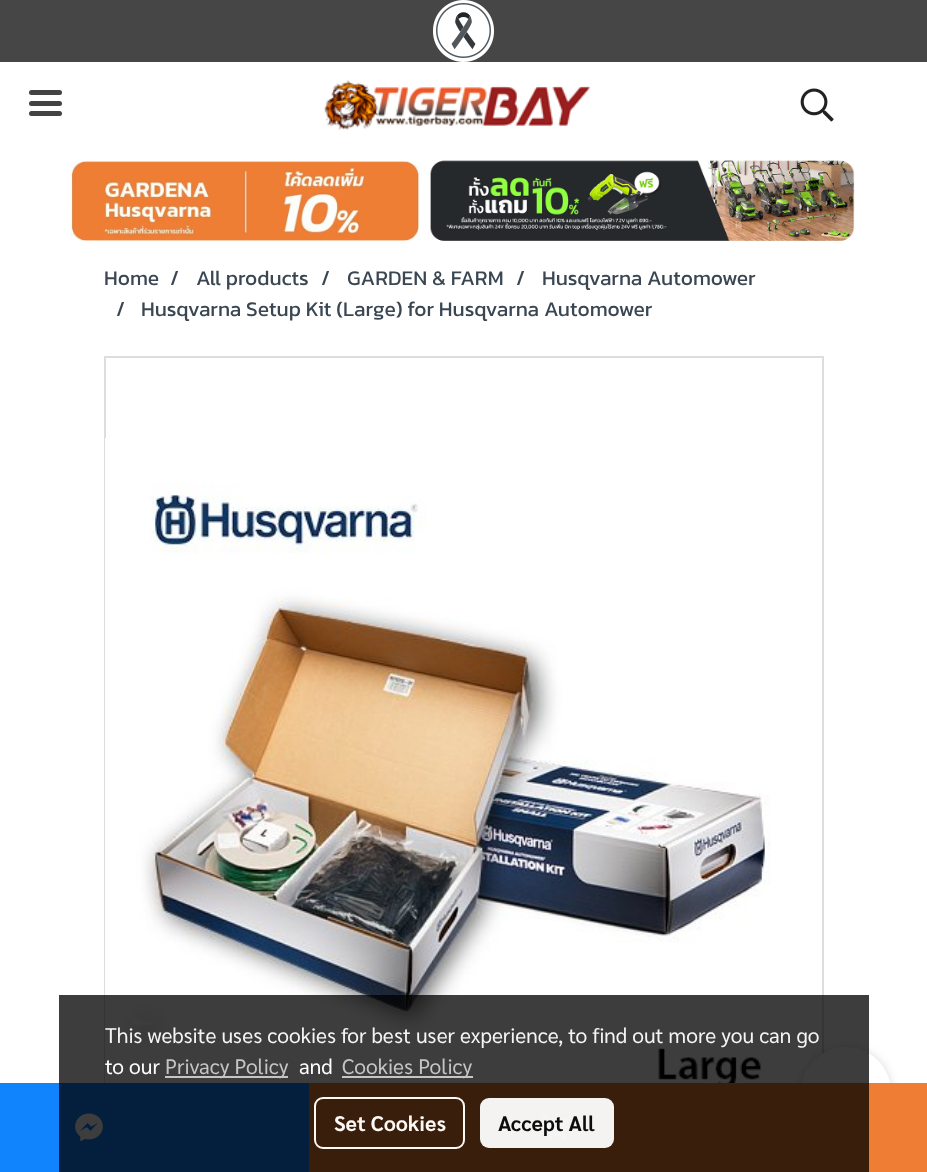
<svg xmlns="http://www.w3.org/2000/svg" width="927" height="1172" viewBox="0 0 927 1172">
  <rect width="100%" height="100%" fill="#fff"/>
  <path d="M0 0h927v62H0z" fill="#464646"/>
  <image x="433" y="0" width="61" height="62" href="img/1.png"/>
  <rect x="29" y="101" width="33" height="5" rx="2.5" fill="#434343"/>
  <rect x="29" y="90" width="33" height="5" rx="2.5" fill="#434343"/>
  <rect x="29" y="111" width="33" height="5" rx="2.5" fill="#434343"/>
  <image x="324" y="80" width="267" height="50" href="img/2.png"/>
  <image x="800" y="88" width="34" height="34" href="img/3.png"/>
  <image x="70" y="160" width="785" height="81" href="img/4.png"/>
  <path d="M105 357h718v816H105z" fill="none" stroke="#ddd" stroke-width="2"/>
  <image x="105" y="438" width="666" height="645" href="img/5.png"/>
  <path d="M0 1083h309v89H0z" fill="#0f84fd"/>
  <image x="75" y="1113" width="28" height="29" href="img/6.png"/>
  <rect x="801" y="1047" width="90" height="90" rx="45" fill="#00000024" filter="blur(5px)"/>
  <circle cx="846" cy="1092" r="45" fill="#fff"/>
  <path d="M309 1083h618v89H309z" fill="#ef7d33"/>
  <image x="541" y="1116" width="28" height="24" href="img/7.png"/>
  <path d="M59 995h810v177H59z" fill="#000000c2"/>
  <path d="M165 1076h123v2H165z" fill="#c5c5c5"/>
  <path d="M342 1076h131v2H342z" fill="#c5c5c5"/>
  <rect x="315" y="1098" width="149" height="50" rx="8" fill="none" stroke="#fef9f5" stroke-width="2"/>
  <rect x="480" y="1098" width="134" height="50" rx="9" fill="#fffffff2"/>
  <g font-family="Kanit" font-size="21" fill="#3a4753">
    <text x="104" y="285">Home</text>
    <text x="170" y="285">/</text>
    <text x="196" y="285">All products</text>
    <text x="321" y="285">/</text>
    <text x="347" y="285">GARDEN &amp; FARM</text>
    <text x="516" y="285">/</text>
    <text x="542" y="285">Husqvarna Automower</text>
    <text x="116" y="316">/</text>
    <text x="141" y="316">Husqvarna Setup Kit (Large) for Husqvarna Automower</text>
  </g>
  <text x="105" y="1043" font-family="Sarabun" font-size="21" fill="#f5f5f5">This website uses cookies for best user experience, to find out more you can go</text>
  <text x="105" y="1074" font-family="Sarabun" font-size="21" fill="#fff">to our</text>
  <text x="165" y="1074" font-family="Sarabun" font-size="21" fill="#c5c5c5">Privacy Policy</text>
  <text x="299" y="1074" font-family="Sarabun" font-size="21" fill="#fff">and</text>
  <text x="342" y="1074" font-family="Sarabun" font-size="21" fill="#c5c5c5">Cookies Policy</text>
  <text x="334" y="1131" font-family="Sarabun" font-size="21" font-weight="bold" fill="#fef9f5">Set Cookies</text>
  <text x="498" y="1131" font-family="Sarabun" font-size="21" font-weight="bold" fill="#0c0c0c">Accept All</text>
</svg>
